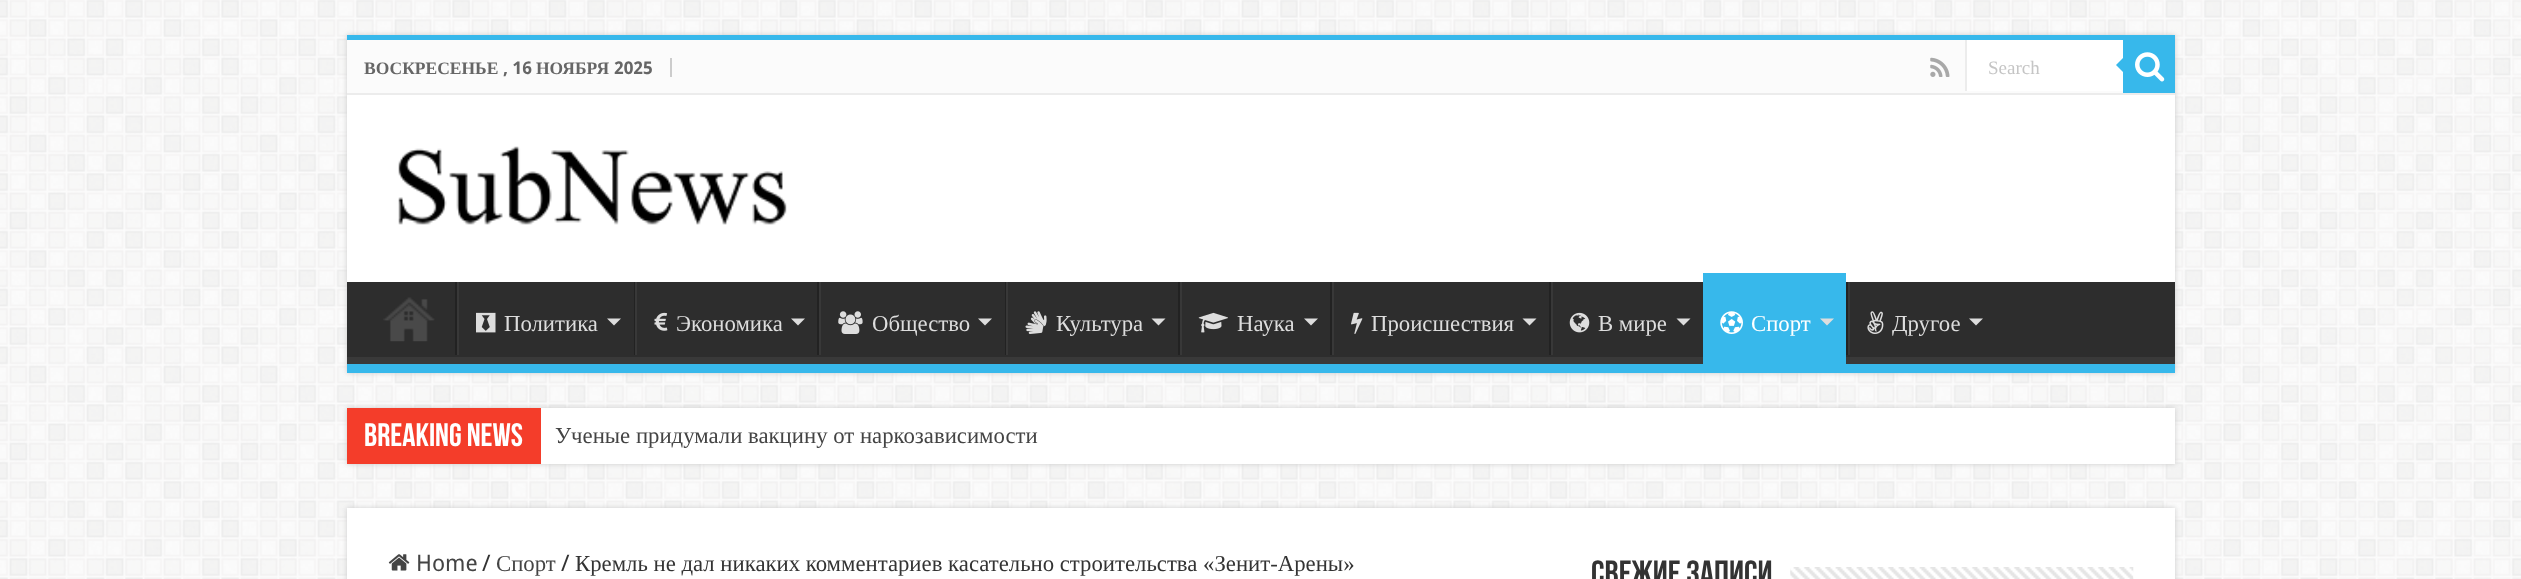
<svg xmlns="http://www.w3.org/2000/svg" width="2521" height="579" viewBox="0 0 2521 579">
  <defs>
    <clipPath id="clip1"><path d="M347 282h1828v82H347z"/></clipPath>
  </defs>
  <rect width="100%" height="100%" fill="#fff"/>
  <image x="0" y="0" width="2521" height="579" href="img/1.png"/>
  <path d="M347 35h1828v338H347z" fill="#cacaca" filter="blur(2.5px)"/>
  <path d="M347 95h1828v187H347z" fill="#fff"/>
  <path d="M347 35h1828v5H347z" fill="#37b8eb"/>
  <path d="M347 40h1776v53H347z" fill="#fbfbfb"/>
  <path d="M347 93h1828v2H347z" fill="#ececec"/>
  <path d="M670 58h2v19H670z" fill="#ccc"/>
  <image x="1930" y="57" width="20" height="20" href="img/2.png"/>
  <path d="M1967 40h156v51H1967z" fill="#fff"/>
  <path d="M1965 40h2v51H1965z" fill="#ececec"/>
  <path d="M2123 40h52v53H2123z" fill="#37b8eb"/>
  <image x="2135" y="52" width="30" height="30" href="img/3.png"/>
  <path d="M2123 58V72L2116 65Z" fill="#37b8eb"/>
  <image x="398" y="146" width="389" height="79" href="img/4.png"/>
  <path d="M347 282h1828v75H347z" fill="#2d2d2d"/>
  <g clip-path="url(#clip1)">
    <path d="M173 108H2348V537H173ZM345 271H2174C2174 271 2175 272 2175 273V355C2175 356 2174 357 2174 357H345C344 357 343 356 343 355V273C343 272 344 271 345 271Z" fill="#393939" fill-rule="evenodd"/>
  </g>
  <path d="M347 364h1828v9H347z" fill="#37b8eb"/>
  <image x="383" y="297" width="52" height="45" href="img/5.png"/>
  <path d="M455 282h2v73H455z" fill="#222"/>
  <path d="M457 282h2v73H457z" fill="#383838"/>
  <image x="476" y="312" width="20" height="21" href="img/6.png"/>
  <path d="M607 318.5H621L614 325.5Z" fill="#ddd"/>
  <path d="M634 282h1v73H634z" fill="#222"/>
  <path d="M635 282h2v73H635z" fill="#383838"/>
  <image x="654" y="312" width="14" height="19" href="img/7.png"/>
  <path d="M791 318.5H805L798 325.5Z" fill="#ddd"/>
  <path d="M817 282h2v73H817z" fill="#222"/>
  <path d="M819 282h2v73H819z" fill="#383838"/>
  <image x="838" y="311" width="25" height="23" href="img/8.png"/>
  <path d="M978 318.5H992L985 325.5Z" fill="#ddd"/>
  <path d="M1005 282h1v73H1005z" fill="#222"/>
  <path d="M1006 282h2v73H1006z" fill="#383838"/>
  <image x="1025" y="311" width="22" height="23" href="img/9.png"/>
  <path d="M1151.5 318.5H1165.5L1158.5 325.5Z" fill="#ddd"/>
  <path d="M1178 282h2v73H1178z" fill="#222"/>
  <path d="M1180 282h2v73H1180z" fill="#383838"/>
  <image x="1198" y="312" width="30" height="21" href="img/10.png"/>
  <path d="M1304 318.5H1318L1311 325.5Z" fill="#ddd"/>
  <path d="M1330 282h2v73H1330z" fill="#222"/>
  <path d="M1332 282h2v73H1332z" fill="#383838"/>
  <image x="1351" y="312" width="12" height="22" href="img/11.png"/>
  <path d="M1522.5 318.5H1536.5L1529.5 325.5Z" fill="#ddd"/>
  <path d="M1549 282h2v73H1549z" fill="#222"/>
  <path d="M1551 282h2v73H1551z" fill="#383838"/>
  <image x="1569" y="312" width="21" height="21" href="img/12.png"/>
  <path d="M1676.5 318.5H1690.5L1683.5 325.5Z" fill="#ddd"/>
  <path d="M1703 273h143v91H1703z" fill="#37b8eb"/>
  <image x="1720" y="311" width="23" height="23" href="img/13.png"/>
  <path d="M1820 318.5H1834L1827 325.5Z" fill="#ddd"/>
  <path d="M1846 282h2v73H1846z" fill="#222"/>
  <path d="M1848 282h2v73H1848z" fill="#383838"/>
  <image x="1867" y="311" width="17" height="23" href="img/14.png"/>
  <path d="M1969 318.5H1983L1976 325.5Z" fill="#ddd"/>
  <path d="M347 408h1828v56H347z" fill="#cacaca" filter="blur(2.5px)"/>
  <path d="M541 408h1634v56H541z" fill="#fff"/>
  <path d="M347 408h194v56H347z" fill="#f43d2a"/>
  <path d="M347 508h1828v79H347z" fill="#cacaca" filter="blur(2.5px)"/>
  <path d="M347 508h1828v71H347z" fill="#fff"/>
  <image x="388" y="554" width="22" height="17" href="img/15.png"/>
  <image x="1790" y="567" width="344" height="12" href="img/16.png"/>
  <text x="364" y="74" font-family="Liberation Serif" font-size="17.5" font-weight="bold" fill="#666">ВОСКРЕСЕНЬЕ</text>
  <text x="503" y="74" font-family="Droid Sans" font-size="17.5" font-weight="bold" fill="#666">, 16</text>
  <text x="536" y="74" font-family="Liberation Serif" font-size="17.5" font-weight="bold" fill="#666">НОЯБРЯ</text>
  <text x="614" y="74" font-family="Droid Sans" font-size="17.5" font-weight="bold" fill="#666">2025</text>
  <text x="1988" y="74" font-family="Liberation Serif" font-size="19" fill="#c5c5c5">Search</text>
  <g font-family="Liberation Serif" font-size="22.75" fill="#ddd">
    <text x="504" y="331">Политика</text>
    <text x="676" y="331">Экономика</text>
    <text x="872" y="331">Общество</text>
    <text x="1056" y="331">Культура</text>
    <text x="1237" y="331">Наука</text>
    <text x="1371" y="331">Происшествия</text>
    <text x="1598" y="331">В мире</text>
  </g>
  <text x="1751" y="331" font-family="Liberation Serif" font-size="22.75" fill="#fff">Спорт</text>
  <text x="1892" y="331" font-family="Liberation Serif" font-size="22.75" fill="#ddd">Другое</text>
  <text x="364" y="446" font-family="Bebas Neue" font-size="32.5" font-weight="bold" fill="#fff">Breaking News</text>
  <text x="555" y="443" font-family="Liberation Serif" font-size="22.75" fill="#444">Ученые придумали вакцину от наркозависимости</text>
  <text x="416" y="571" font-family="Droid Sans" font-size="22.75" fill="#444">Home</text>
  <text x="482" y="571" font-family="Droid Sans" font-size="22.75" fill="#333">/</text>
  <text x="496" y="571" font-family="Liberation Serif" font-size="22.75" fill="#444">Спорт</text>
  <text x="561" y="571" font-family="Droid Sans" font-size="22.75" fill="#333">/</text>
  <text x="575" y="571" font-family="Liberation Serif" font-size="22.75" fill="#333">Кремль не дал никаких комментариев касательно строительства «Зенит-Арены»</text>
  <text x="1591" y="585" font-family="Bebas Neue" font-size="35" font-weight="bold" fill="#333">Свежие записи</text>
</svg>
